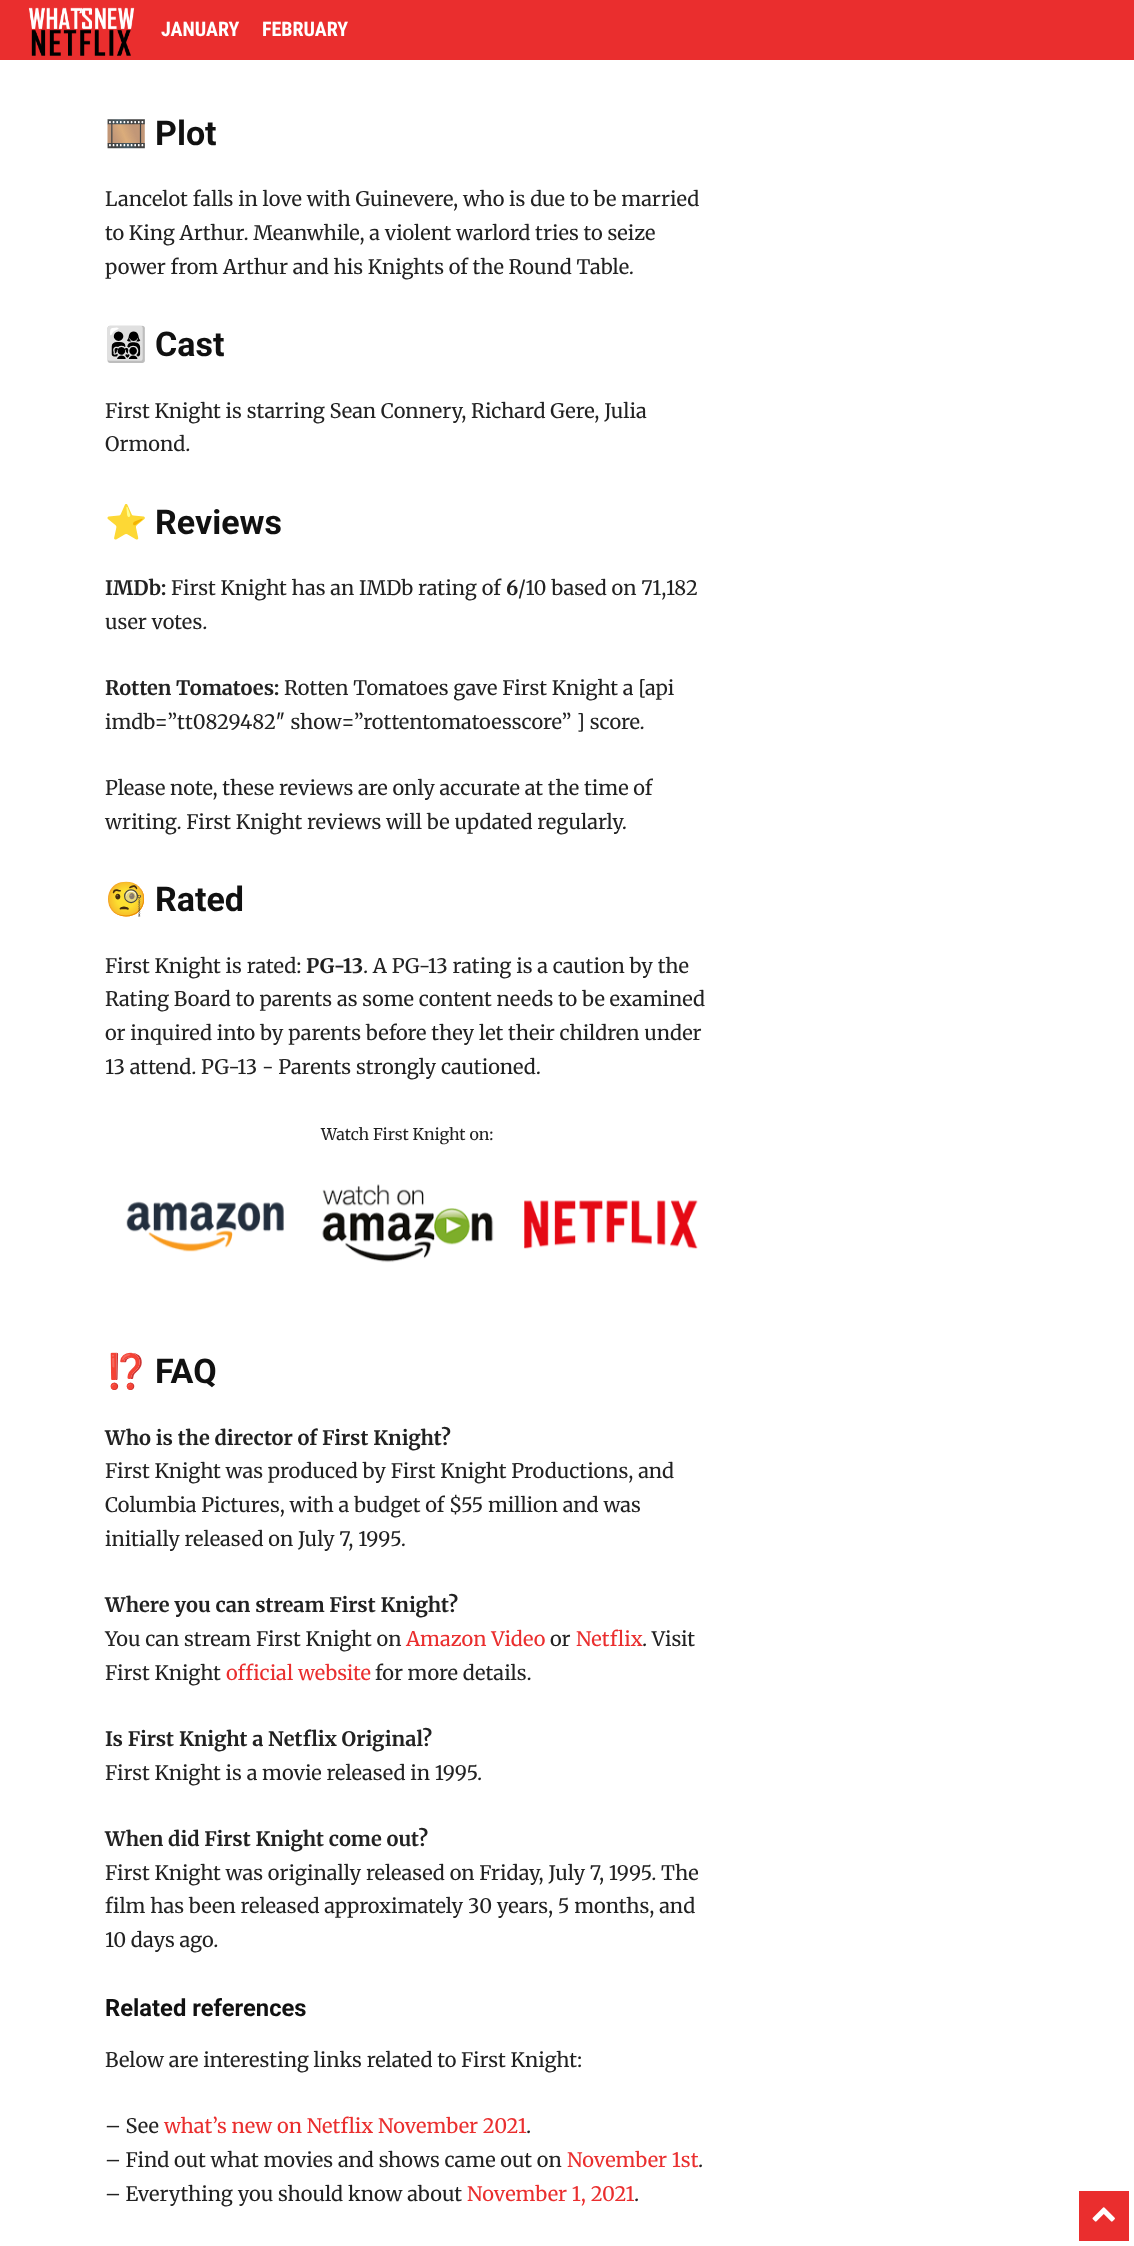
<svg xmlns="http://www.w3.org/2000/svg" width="1134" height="2246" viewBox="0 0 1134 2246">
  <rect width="100%" height="100%" fill="#fff"/>
  <path d="M0 0h1134v60H0z" fill="#ea2e2e"/>
  <image x="28" y="7" width="107" height="49" href="img/1.png"/>
  <image x="126" y="1201" width="158" height="51" href="img/2.png"/>
  <image x="321" y="1184" width="173" height="79" href="img/3.png"/>
  <image x="524" y="1200" width="174" height="49" href="img/4.png"/>
  <path d="M1079 2191h50v50H1079z" fill="#ea2e2e"/>
  <image x="1092" y="2207" width="23" height="15" href="img/5.png"/>
  <g font-family="Roboto Condensed" font-size="20" font-weight="bold" fill="#fff">
    <text x="161" y="36">JANUARY</text>
    <text x="262" y="36">FEBRUARY</text>
  </g>
  <text x="105" y="145" font-family="Noto Color Emoji" font-size="34" fill="#111">🎞️</text>
  <text x="155" y="145" font-family="Roboto" font-size="34" font-weight="bold" fill="#111">Plot</text>
  <g font-family="Merriweather" font-size="20" fill="#222">
    <text x="105" y="206">Lancelot falls in love with Guinevere, who is due to be married</text>
    <text x="105" y="240">to King Arthur. Meanwhile, a violent warlord tries to seize</text>
    <text x="105" y="274">power from Arthur and his Knights of the Round Table.</text>
  </g>
  <text x="105" y="356" font-family="Noto Color Emoji" font-size="34" fill="#111">👨‍👩‍👧‍👦</text>
  <text x="155" y="356" font-family="Roboto" font-size="34" font-weight="bold" fill="#111">Cast</text>
  <g font-family="Merriweather" font-size="20" fill="#222">
    <text x="105" y="418">First Knight is starring Sean Connery, Richard Gere, Julia</text>
    <text x="105" y="451">Ormond.</text>
  </g>
  <text x="105" y="534" font-family="Noto Color Emoji" font-size="34" fill="#111">⭐</text>
  <text x="155" y="534" font-family="Roboto" font-size="34" font-weight="bold" fill="#111">Reviews</text>
  <text x="105" y="595" font-family="Merriweather" font-size="20" font-weight="bold" fill="#222">IMDb:</text>
  <text x="171" y="595" font-family="Merriweather" font-size="20" fill="#222">First Knight has an IMDb rating of</text>
  <text x="506" y="595" font-family="Merriweather" font-size="20" font-weight="bold" fill="#222">6</text>
  <g font-family="Merriweather" font-size="20" fill="#222">
    <text x="518" y="595">/10 based on 71,182</text>
    <text x="105" y="629">user votes.</text>
  </g>
  <text x="105" y="695" font-family="Merriweather" font-size="20" font-weight="bold" fill="#222">Rotten Tomatoes:</text>
  <g font-family="Merriweather" font-size="20" fill="#222">
    <text x="284" y="695">Rotten Tomatoes gave First Knight a [api</text>
    <text x="105" y="729">imdb=”tt0829482″ show=”rottentomatoesscore” ] score.</text>
    <text x="105" y="795">Please note, these reviews are only accurate at the time of</text>
    <text x="105" y="829">writing. First Knight reviews will be updated regularly.</text>
  </g>
  <text x="105" y="911" font-family="Noto Color Emoji" font-size="34" fill="#111">🧐</text>
  <text x="155" y="911" font-family="Roboto" font-size="34" font-weight="bold" fill="#111">Rated</text>
  <text x="105" y="973" font-family="Merriweather" font-size="20" fill="#222">First Knight is rated:</text>
  <text x="306" y="973" font-family="Merriweather" font-size="20" font-weight="bold" fill="#222">PG-13</text>
  <g font-family="Merriweather" font-size="20" fill="#222">
    <text x="363" y="973">. A PG-13 rating is a caution by the</text>
    <text x="105" y="1006">Rating Board to parents as some content needs to be examined</text>
    <text x="105" y="1040">or inquired into by parents before they let their children under</text>
    <text x="105" y="1074">13 attend. PG-13 - Parents strongly cautioned.</text>
  </g>
  <text x="321" y="1140" font-family="Merriweather" font-size="16" fill="#222">Watch First Knight on:</text>
  <text x="105" y="1383" font-family="Noto Color Emoji" font-size="34" fill="#111">⁉️</text>
  <text x="155" y="1383" font-family="Roboto" font-size="34" font-weight="bold" fill="#111">FAQ</text>
  <text x="105" y="1445" font-family="Merriweather" font-size="20" font-weight="bold" fill="#222">Who is the director of First Knight?</text>
  <g font-family="Merriweather" font-size="20" fill="#222">
    <text x="105" y="1478">First Knight was produced by First Knight Productions, and</text>
    <text x="105" y="1512">Columbia Pictures, with a budget of $55 million and was</text>
    <text x="105" y="1546">initially released on July 7, 1995.</text>
  </g>
  <text x="105" y="1612" font-family="Merriweather" font-size="20" font-weight="bold" fill="#222">Where you can stream First Knight?</text>
  <text x="105" y="1646" font-family="Merriweather" font-size="20" fill="#222">You can stream First Knight on</text>
  <text x="406" y="1646" font-family="Merriweather" font-size="20" fill="#ea2e2e">Amazon Video</text>
  <text x="550" y="1646" font-family="Merriweather" font-size="20" fill="#222">or</text>
  <text x="576" y="1646" font-family="Merriweather" font-size="20" fill="#ea2e2e">Netflix</text>
  <g font-family="Merriweather" font-size="20" fill="#222">
    <text x="642" y="1646">. Visit</text>
    <text x="105" y="1680">First Knight</text>
  </g>
  <text x="226" y="1680" font-family="Merriweather" font-size="20" fill="#ea2e2e">official website</text>
  <text x="375" y="1680" font-family="Merriweather" font-size="20" fill="#222">for more details.</text>
  <text x="105" y="1746" font-family="Merriweather" font-size="20" font-weight="bold" fill="#222">Is First Knight a Netflix Original?</text>
  <text x="105" y="1780" font-family="Merriweather" font-size="20" fill="#222">First Knight is a movie released in 1995.</text>
  <text x="105" y="1846" font-family="Merriweather" font-size="20" font-weight="bold" fill="#222">When did First Knight come out?</text>
  <g font-family="Merriweather" font-size="20" fill="#222">
    <text x="105" y="1880">First Knight was originally released on Friday, July 7, 1995. The</text>
    <text x="105" y="1913">film has been released approximately 30 years, 5 months, and</text>
    <text x="105" y="1947">10 days ago.</text>
  </g>
  <text x="105" y="2016" font-family="Roboto" font-size="23.75" font-weight="bold" fill="#111">Related references</text>
  <g font-family="Merriweather" font-size="20" fill="#222">
    <text x="105" y="2067">Below are interesting links related to First Knight:</text>
    <text x="105" y="2133">– See</text>
  </g>
  <text x="164" y="2133" font-family="Merriweather" font-size="20" fill="#ea2e2e">what’s new on Netflix November 2021</text>
  <g font-family="Merriweather" font-size="20" fill="#222">
    <text x="526" y="2133">.</text>
    <text x="105" y="2167">– Find out what movies and shows came out on</text>
  </g>
  <text x="567" y="2167" font-family="Merriweather" font-size="20" fill="#ea2e2e">November 1st</text>
  <g font-family="Merriweather" font-size="20" fill="#222">
    <text x="698" y="2167">.</text>
    <text x="105" y="2201">– Everything you should know about</text>
  </g>
  <text x="467" y="2201" font-family="Merriweather" font-size="20" fill="#ea2e2e">November 1, 2021</text>
  <text x="634" y="2201" font-family="Merriweather" font-size="20" fill="#222">.</text>
</svg>
